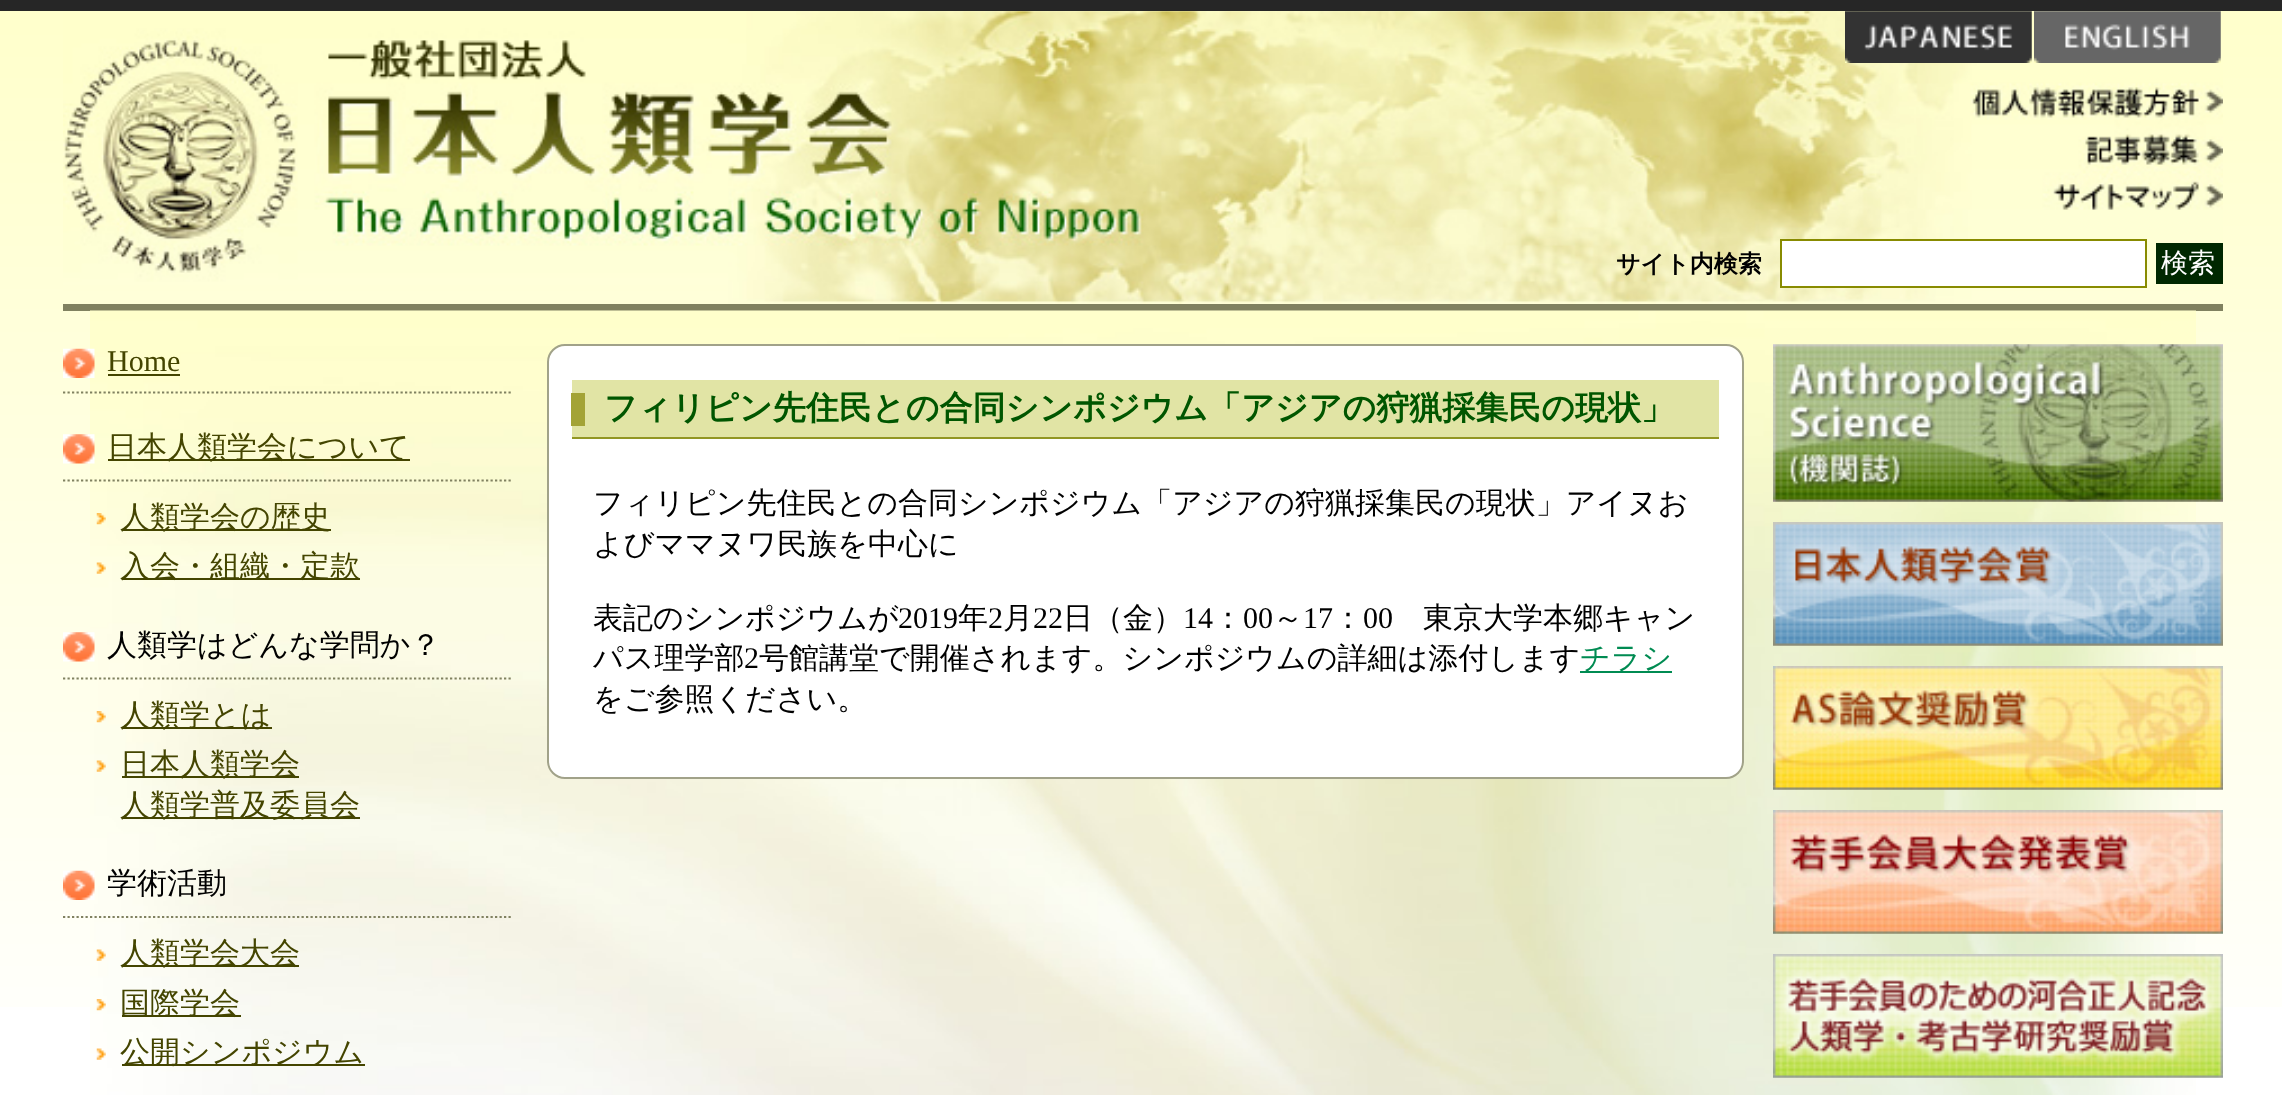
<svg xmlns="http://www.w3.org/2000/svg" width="2282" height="1095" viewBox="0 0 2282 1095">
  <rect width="100%" height="100%" fill="#fff"/>
  <image x="0" y="11" width="2282" height="996" href="img/1.png"/>
  <path d="M0 0h2282v11H0z" fill="#262626"/>
  <image x="63" y="11" width="2160" height="293" href="img/2.png"/>
  <path d="M63 304h2160v7H63z" fill="#808160"/>
  <image x="1845" y="11" width="187" height="52" href="img/3.png"/>
  <image x="2034" y="11" width="187" height="52" href="img/4.png"/>
  <path d="M1781 240h365v47H1781z" fill="#fff" stroke="#888b00" stroke-width="2"/>
  <path d="M2156 243h67v41H2156z" fill="#002800"/>
  <image x="90" y="310" width="2106" height="785" href="img/5.png"/>
  <image x="63" y="348" width="32" height="30" href="img/6.png"/>
  <path d="M63 392.5H513" fill="none" stroke="#808160" stroke-width="2.2" stroke-dasharray="2.25 2.25"/>
  <path d="M108 374h72v2H108z" fill="#444500"/>
  <image x="63" y="434" width="32" height="30" href="img/7.png"/>
  <path d="M63 480.5H513" fill="none" stroke="#808160" stroke-width="2.2" stroke-dasharray="2.25 2.25"/>
  <path d="M108 459h302v2H108z" fill="#444500"/>
  <image x="96" y="513" width="10" height="12" href="img/8.png"/>
  <path d="M122 529h209v2H122z" fill="#444500"/>
  <image x="96" y="562" width="10" height="12" href="img/9.png"/>
  <path d="M122 578h238v2H122z" fill="#444500"/>
  <image x="63" y="632" width="32" height="30" href="img/10.png"/>
  <path d="M63 678.5H513" fill="none" stroke="#808160" stroke-width="2.2" stroke-dasharray="2.25 2.25"/>
  <image x="96" y="711" width="10" height="12" href="img/11.png"/>
  <path d="M122 727h150v2H122z" fill="#444500"/>
  <image x="96" y="760" width="10" height="12" href="img/12.png"/>
  <path d="M122 776h177v2H122z" fill="#444500"/>
  <path d="M122 817h238v2H122z" fill="#444500"/>
  <image x="63" y="870" width="32" height="30" href="img/13.png"/>
  <path d="M63 917H513" fill="none" stroke="#808160" stroke-width="2.2" stroke-dasharray="2.25 2.25"/>
  <image x="96" y="949" width="10" height="12" href="img/14.png"/>
  <path d="M122 965h177v2H122z" fill="#444500"/>
  <image x="96" y="999" width="10" height="12" href="img/15.png"/>
  <path d="M122 1015h119v2H122z" fill="#444500"/>
  <image x="96" y="1048" width="10" height="12" href="img/16.png"/>
  <path d="M122 1064h243v2H122z" fill="#444500"/>
  <rect x="548" y="345" width="1195" height="433" rx="17" fill="#fff" stroke="#a1a289" stroke-width="2"/>
  <path d="M572 380h1147v57H572z" fill="#e1e4a5"/>
  <path d="M571 393h14v33H571z" fill="#a3a336"/>
  <path d="M572 437h1147v2H572z" fill="#929623"/>
  <path d="M1580 671h92v2H1580z" fill="#008b52"/>
  <image x="1773" y="344" width="450" height="158" href="img/17.png"/>
  <image x="1773" y="522" width="450" height="124" href="img/18.png"/>
  <image x="1773" y="666" width="450" height="124" href="img/19.png"/>
  <image x="1773" y="810" width="450" height="124" href="img/20.png"/>
  <image x="1773" y="954" width="450" height="124" href="img/21.png"/>
  <text x="1616" y="272" font-family="WenQuanYi Zen Hei" font-size="24" font-weight="bold" fill="#000">サイト内検索</text>
  <text x="2161" y="272" font-family="WenQuanYi Zen Hei" font-size="27" font-weight="500" fill="#fff">検索</text>
  <text x="107" y="371" font-family="Liberation Serif" font-size="30" fill="#444500">Home</text>
  <g font-family="WenQuanYi Zen Hei" font-size="30" font-weight="500" fill="#444500">
    <text x="107" y="457">日本人類学会について</text>
    <text x="120" y="527">人類学会の歴史</text>
    <text x="120" y="576">入会・組織・定款</text>
  </g>
  <text x="107" y="655" font-family="WenQuanYi Zen Hei" font-size="30" font-weight="500" fill="#000">人類学はどんな学問か？</text>
  <g font-family="WenQuanYi Zen Hei" font-size="30" font-weight="500" fill="#444500">
    <text x="120" y="725">人類学とは</text>
    <text x="120" y="774">日本人類学会</text>
    <text x="120" y="815">人類学普及委員会</text>
  </g>
  <text x="107" y="893" font-family="WenQuanYi Zen Hei" font-size="30" font-weight="500" fill="#000">学術活動</text>
  <g font-family="WenQuanYi Zen Hei" font-size="30" font-weight="500" fill="#444500">
    <text x="120" y="963">人類学会大会</text>
    <text x="120" y="1013">国際学会</text>
    <text x="120" y="1062">公開シンポジウム</text>
  </g>
  <text x="604" y="419" font-family="WenQuanYi Zen Hei" font-size="33" font-weight="bold" fill="#005600">フィリピン先住民との合同シンポジウム「アジアの狩猟採集民の現状」</text>
  <g font-family="WenQuanYi Zen Hei" font-size="30" font-weight="500" fill="#000">
    <text x="593" y="513">フィリピン先住民との合同シンポジウム「アジアの狩猟採集民の現状」アイヌお</text>
    <text x="593" y="554">よびママヌワ民族を中心に</text>
    <text x="593" y="628">表記のシンポジウムが</text>
  </g>
  <text x="898" y="628" font-family="Liberation Serif" font-size="30" fill="#000">2019</text>
  <text x="958" y="628" font-family="WenQuanYi Zen Hei" font-size="30" font-weight="500" fill="#000">年</text>
  <text x="988" y="628" font-family="Liberation Serif" font-size="30" fill="#000">2</text>
  <text x="1003" y="628" font-family="WenQuanYi Zen Hei" font-size="30" font-weight="500" fill="#000">月</text>
  <text x="1033" y="628" font-family="Liberation Serif" font-size="30" fill="#000">22</text>
  <text x="1063" y="628" font-family="WenQuanYi Zen Hei" font-size="30" font-weight="500" fill="#000">日（金）</text>
  <text x="1183" y="628" font-family="Liberation Serif" font-size="30" fill="#000">14</text>
  <text x="1213" y="628" font-family="WenQuanYi Zen Hei" font-size="30" font-weight="500" fill="#000">：</text>
  <text x="1243" y="628" font-family="Liberation Serif" font-size="30" fill="#000">00</text>
  <text x="1273" y="628" font-family="WenQuanYi Zen Hei" font-size="30" font-weight="500" fill="#000">～</text>
  <text x="1303" y="628" font-family="Liberation Serif" font-size="30" fill="#000">17</text>
  <text x="1333" y="628" font-family="WenQuanYi Zen Hei" font-size="30" font-weight="500" fill="#000">：</text>
  <text x="1363" y="628" font-family="Liberation Serif" font-size="30" fill="#000">00</text>
  <g font-family="WenQuanYi Zen Hei" font-size="30" font-weight="500" fill="#000">
    <text x="1423" y="628">東京大学本郷キャン</text>
    <text x="593" y="668">パス理学部</text>
  </g>
  <text x="744" y="668" font-family="Liberation Serif" font-size="30" fill="#000">2</text>
  <text x="759" y="668" font-family="WenQuanYi Zen Hei" font-size="30" font-weight="500" fill="#000">号館講堂で開催されます。シンポジウムの詳細は添付します</text>
  <text x="1580" y="668" font-family="WenQuanYi Zen Hei" font-size="30" font-weight="500" fill="#008b52">チラシ</text>
  <text x="593" y="709" font-family="WenQuanYi Zen Hei" font-size="30" font-weight="500" fill="#000">をご参照ください。</text>
</svg>
